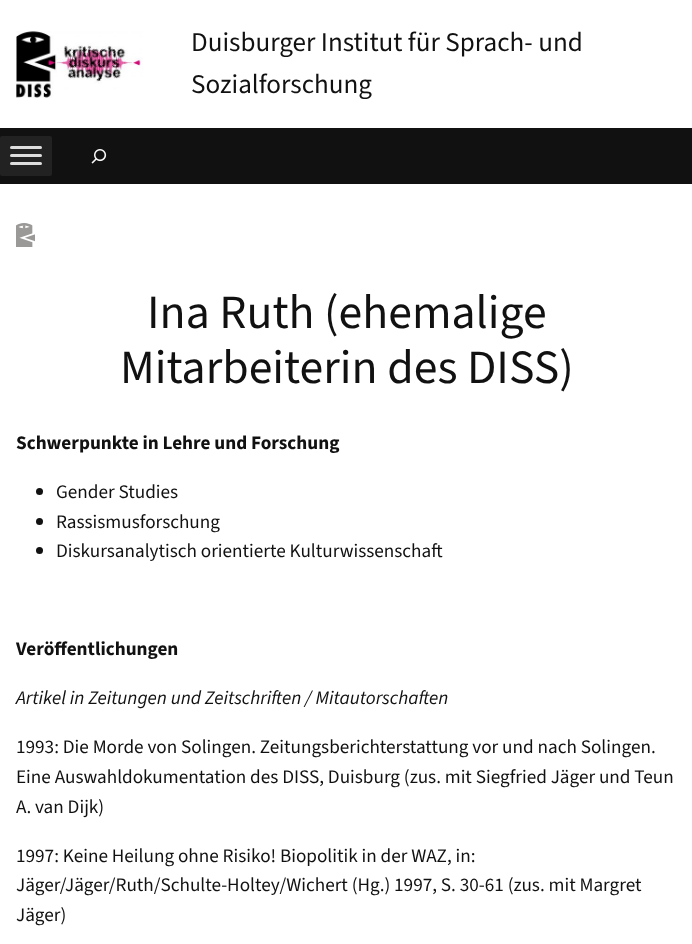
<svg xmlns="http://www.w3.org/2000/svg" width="692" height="944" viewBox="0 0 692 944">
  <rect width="100%" height="100%" fill="#fff"/>
  <image x="16" y="31" width="127" height="67" href="img/1.png"/>
  <path d="M0 128h692v56H0z" fill="#111"/>
  <rect y="136" width="52" height="40" rx="2" fill="#222"/>
  <rect x="10" y="146" width="32" height="3" rx="1.5" fill="#ddd"/>
  <rect x="10" y="154" width="32" height="3" rx="1.5" fill="#ddd"/>
  <rect x="10" y="162" width="32" height="3" rx="1.5" fill="#ddd"/>
  <image x="91" y="149" width="16" height="15" href="img/2.png"/>
  <image x="16" y="223" width="19" height="24" href="img/3.png"/>
  <circle cx="39.5" cy="491.5" r="3.5" fill="#111"/>
  <circle cx="39.5" cy="521.5" r="3.5" fill="#111"/>
  <circle cx="39.5" cy="550.5" r="3.5" fill="#111"/>
  <g font-family="'Source Sans 3'" font-size="27.1" fill="#111">
    <text x="191" y="51">Duisburger Institut für Sprach- und</text>
    <text x="191" y="93">Sozialforschung</text>
  </g>
  <g font-family="'Source Sans 3'" font-size="47.75" fill="#111">
    <text x="147" y="328">Ina Ruth (ehemalige</text>
    <text x="120" y="383">Mitarbeiterin des DISS)</text>
  </g>
  <text x="16" y="449" font-family="'Source Sans 3'" font-size="19.2" font-weight="bold" fill="#111">Schwerpunkte in Lehre und Forschung</text>
  <g font-family="'Source Sans 3'" font-size="19.2" fill="#111">
    <text x="56" y="498">Gender Studies</text>
    <text x="56" y="528">Rassismusforschung</text>
    <text x="56" y="557">Diskursanalytisch orientierte Kulturwissenschaft</text>
  </g>
  <text x="16" y="655" font-family="'Source Sans 3'" font-size="19.2" font-weight="bold" fill="#111">Veröffentlichungen</text>
  <text x="16" y="704" font-family="'Source Sans 3'" font-size="19.2" font-style="italic" fill="#111">Artikel in Zeitungen und Zeitschriften / Mitautorschaften</text>
  <g font-family="'Source Sans 3'" font-size="19.2" fill="#111">
    <text x="16" y="753">1993: Die Morde von Solingen. Zeitungsberichterstattung vor und nach Solingen.</text>
    <text x="16" y="783">Eine Auswahldokumentation des DISS, Duisburg (zus. mit Siegfried Jäger und Teun</text>
    <text x="16" y="813">A. van Dijk)</text>
    <text x="16" y="862">1997: Keine Heilung ohne Risiko! Biopolitik in der WAZ, in:</text>
    <text x="16" y="891">Jäger/Jäger/Ruth/Schulte-Holtey/Wichert (Hg.) 1997, S. 30-61 (zus. mit Margret</text>
    <text x="16" y="921">Jäger)</text>
  </g>
</svg>
